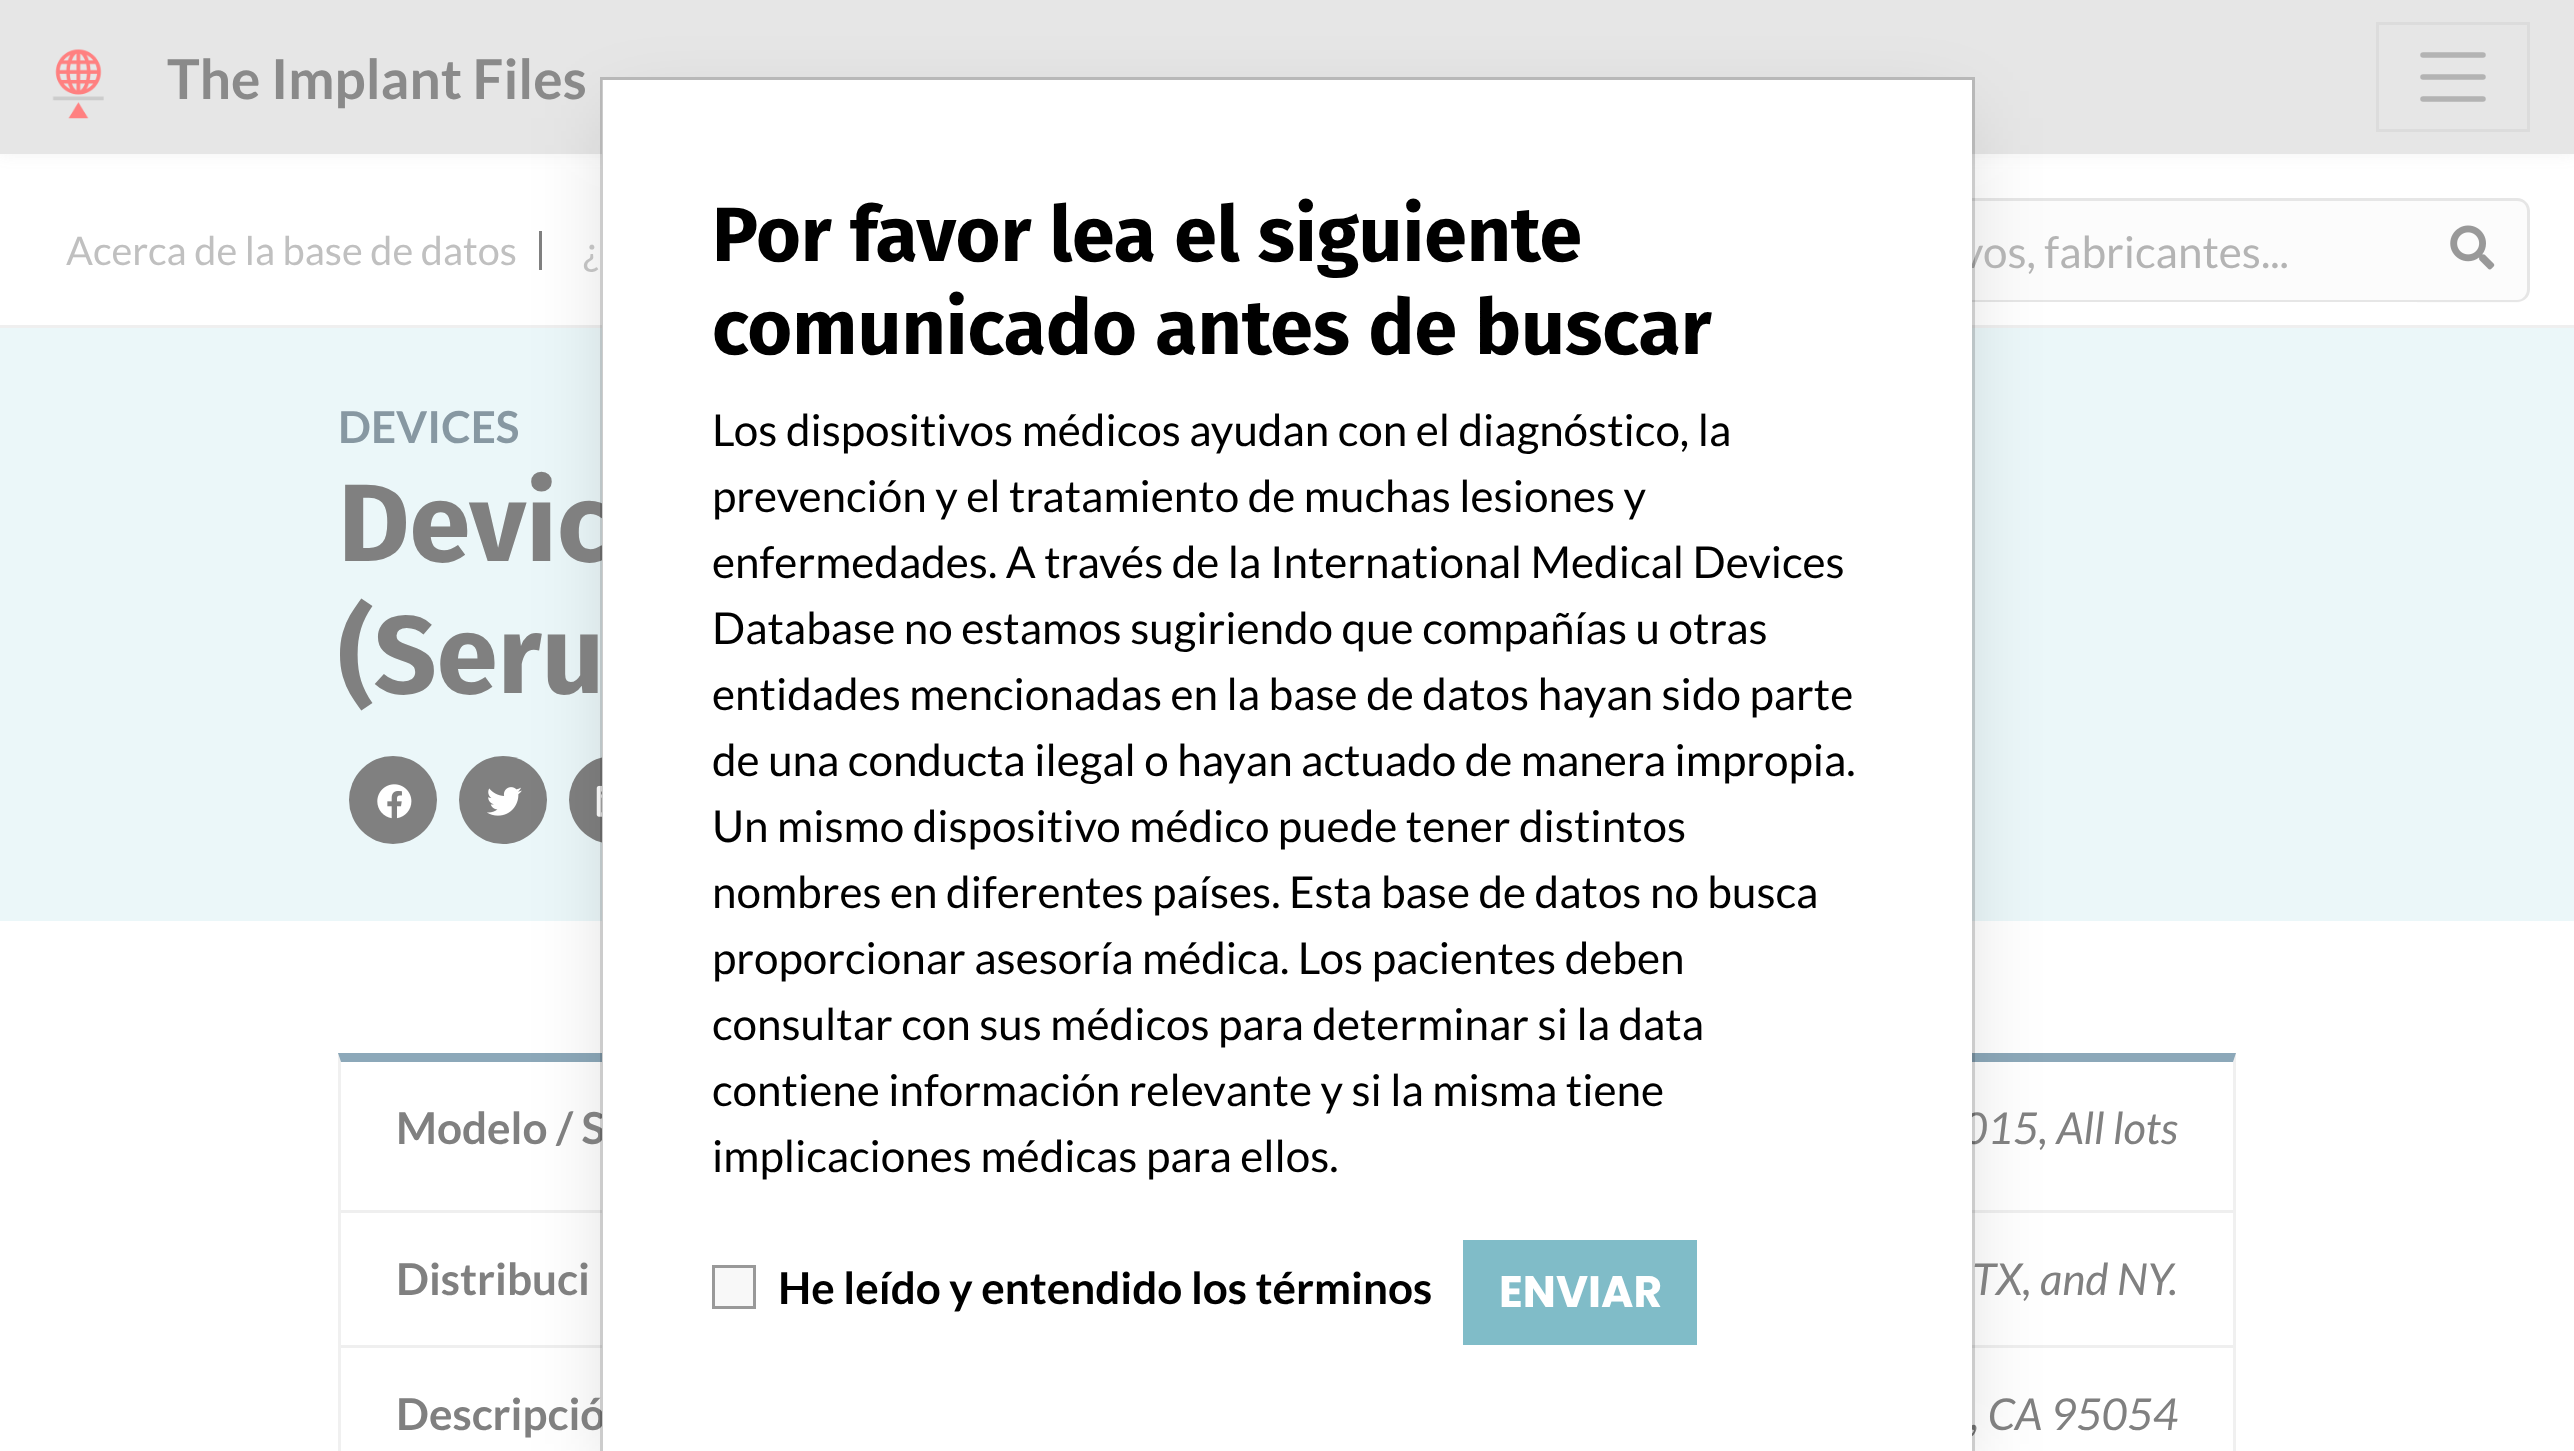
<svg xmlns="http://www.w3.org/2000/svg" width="2574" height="1451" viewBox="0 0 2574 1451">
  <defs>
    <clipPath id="clip1"><path d="M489 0H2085V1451H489ZM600 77H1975V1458H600Z" clip-rule="evenodd"/></clipPath>
  </defs>
  <rect width="100%" height="100%" fill="#fff"/>
  <path d="M0 0h2574v154H0z" fill="#8080801a" filter="blur(8px)"/>
  <path d="M0 0h2574v154H0z" fill="#e6e6e6"/>
  <image x="52" y="49" width="52" height="70" href="img/1.png"/>
  <path d="M2377.5 23.5h151v107H2377.5z" fill="none" stroke="#dcdcdc" stroke-width="3"/>
  <path d="M2423 55H2483M2423 77H2483M2423 99H2483" fill="none" stroke="#b3b3b3" stroke-width="5.5" stroke-linecap="round"/>
  <path d="M0 325h2574v3H0z" fill="#efefef"/>
  <path d="M539 231h3v39H539z" fill="#808080"/>
  <path d="M1972 201h445v99H1972z" fill="#fcfcfc"/>
  <path d="M2417 198H2516C2523.5 198 2530 204.5 2530 212V289C2530 296.5 2523.5 303 2516 303H2417Z" fill="#fcfcfc"/>
  <path d="M2417 198H2517C2524 198 2530 204 2530 211V289C2530 297 2524 302 2517 302H2417ZM2417 201H2517C2523 201 2527 205 2527 211V289C2527 295 2523 300 2517 300H2417Z" fill="#e6e6e6" fill-rule="evenodd"/>
  <path d="M1636 198H2420V302H1636C1628 302 1622 297 1622 289V211C1622 204 1628 198 1636 198ZM1636 201H2420V300H1636C1630 300 1625 295 1625 289V211C1625 205 1630 201 1636 201Z" fill="#e6e6e6" fill-rule="evenodd"/>
  <image x="2450" y="225" width="45" height="45" href="img/2.png"/>
  <path d="M0 328h2574v593H0z" fill="#ebf7f9"/>
  <circle cx="393" cy="800" r="44" fill="#808080"/>
  <image x="377" y="784" width="35" height="35" href="img/3.png"/>
  <circle cx="503" cy="800" r="44" fill="#808080"/>
  <image x="487" y="787" width="35" height="29" href="img/4.png"/>
  <circle cx="613" cy="800" r="44" fill="#808080"/>
  <image x="596" y="785" width="6" height="32" href="img/5.png"/>
  <path d="M338 1053H2236L2233 1062H341Z" fill="#8ca8b9"/>
  <path d="M2236 1053V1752L2233 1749V1062Z" fill="#8080801f"/>
  <path d="M338 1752V1053L341 1062V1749Z" fill="#8080801f"/>
  <path d="M341 1210h1892v3H341z" fill="#efefef"/>
  <path d="M341 1345h1892v3H341z" fill="#efefef"/>
  <g clip-path="url(#clip1)">
    <path d="M613 118h1348v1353H613z" fill="#00000026" filter="blur(41px)"/>
  </g>
  <text x="167" y="99" font-family="Lato" font-size="55" font-weight="bold" fill="#8a8a8a">The Implant Files</text>
  <g font-family="Lato" font-size="39.6" fill="#c0c0c0">
    <text x="66" y="265">Acerca de la base de datos</text>
    <text x="583" y="265">¿</text>
  </g>
  <text x="1961" y="268" font-family="Lato" font-size="44" fill="#b4b4b4">vos, fabricantes...</text>
  <text x="338" y="443" font-family="Lato" font-size="44" font-weight="bold" fill="#8798a2">DEVICES</text>
  <g font-family="Fira Sans" font-size="110" font-weight="bold" fill="#808080">
    <text x="338" y="561">Devic</text>
    <text x="338" y="693">(Seru</text>
  </g>
  <text x="396" y="1144" font-family="Lato" font-size="44" font-weight="bold" fill="#808080">Modelo / S</text>
  <text x="1962" y="1144" font-family="Lato" font-size="44" font-style="italic" fill="#808080">015, All lots</text>
  <text x="396" y="1295" font-family="Lato" font-size="44" font-weight="bold" fill="#808080">Distribuci</text>
  <text x="1972" y="1295" font-family="Lato" font-size="44" font-style="italic" fill="#808080">TX, and NY.</text>
  <text x="396" y="1430" font-family="Lato" font-size="44" font-weight="bold" fill="#808080">Descripció</text>
  <text x="1970" y="1430" font-family="Lato" font-size="44" font-style="italic" fill="#808080">, CA 95054</text>
  <path d="M602 80h1370v1356H602z" fill="#fff"/>
  <path d="M601.5 78.5h1372v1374H601.5z" fill="none" stroke="#00000033" stroke-width="3"/>
  <g font-family="Fira Sans" font-size="77" font-weight="bold" fill="#000">
    <text x="712" y="261">Por favor lea el siguiente</text>
    <text x="712" y="354">comunicado antes de buscar</text>
  </g>
  <g font-family="Lato" font-size="44" fill="#000">
    <text x="712" y="446">Los dispositivos médicos ayudan con el diagnóstico, la</text>
    <text x="712" y="512">prevención y el tratamiento de muchas lesiones y</text>
    <text x="712" y="578">enfermedades. A través de la International Medical Devices</text>
    <text x="712" y="644">Database no estamos sugiriendo que compañías u otras</text>
    <text x="712" y="710">entidades mencionadas en la base de datos hayan sido parte</text>
    <text x="712" y="776">de una conducta ilegal o hayan actuado de manera impropia.</text>
    <text x="712" y="842">Un mismo dispositivo médico puede tener distintos</text>
    <text x="712" y="908">nombres en diferentes países. Esta base de datos no busca</text>
    <text x="712" y="974">proporcionar asesoría médica. Los pacientes deben</text>
    <text x="712" y="1040">consultar con sus médicos para determinar si la data</text>
    <text x="712" y="1106">contiene información relevante y si la misma tiene</text>
    <text x="712" y="1172">implicaciones médicas para ellos.</text>
  </g>
  <path d="M713.5 1266.5h41v41H713.5z" fill="#f8f8f8" stroke="#999" stroke-width="3"/>
  <text x="778" y="1304" font-family="Lato" font-size="44" font-weight="bold" fill="#000">He leído y entendido los términos</text>
  <path d="M1463 1240h234v105H1463z" fill="#80bcc8"/>
  <text x="1499" y="1307" font-family="Poppins" font-size="44" font-weight="bold" fill="#fff">ENVIAR</text>
</svg>
